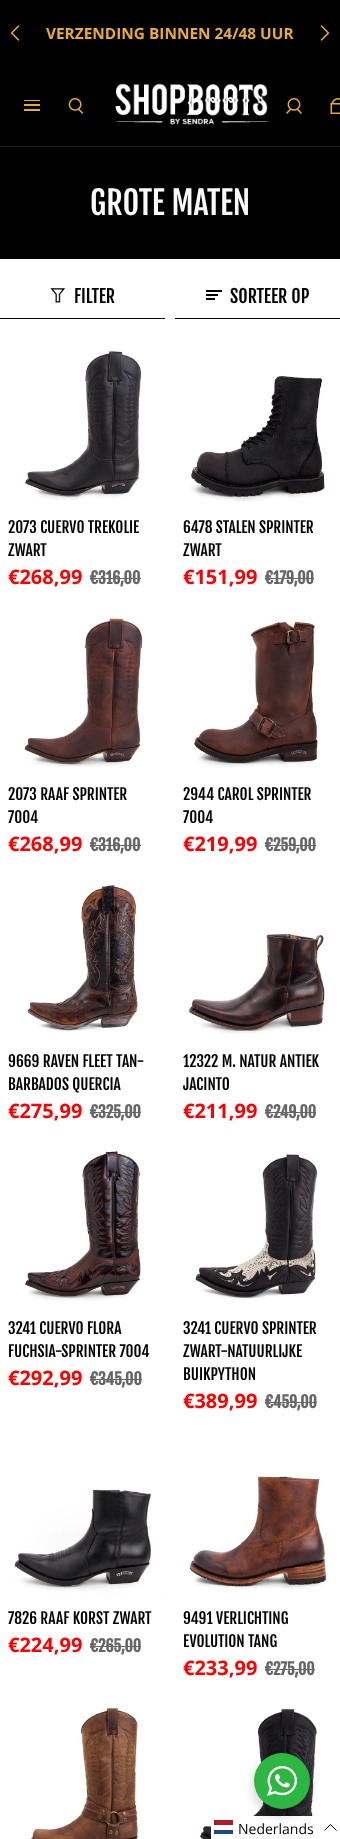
<svg xmlns="http://www.w3.org/2000/svg" width="340" height="1839" viewBox="0 0 340 1839">
  <rect width="100%" height="100%" fill="#fff"/>
  <path d="M0 0h340v146H0z" fill="#000"/>
  <image x="10" y="25" width="10" height="16" href="img/1.png"/>
  <image x="320" y="25" width="10" height="16" href="img/2.png"/>
  <path d="M0 146h340v1H0z" fill="#2f2209"/>
  <path d="M24 100h16v1H24z" fill="#eaac2c"/>
  <path d="M24 104h16v2H24z" fill="#eaac2c"/>
  <path d="M24 109h16v2H24z" fill="#eaac2c"/>
  <image x="68" y="98" width="16" height="16" href="img/3.png"/>
  <image x="115" y="83" width="154" height="42" href="img/4.png"/>
  <image x="286" y="98" width="16" height="16" href="img/5.png"/>
  <image x="330" y="98" width="10" height="16" href="img/6.png"/>
  <path d="M0 147h340v112H0z" fill="#000"/>
  <image x="50" y="288" width="16" height="15" href="img/7.png"/>
  <path d="M0 318h165v1H0z" fill="#000"/>
  <path d="M206 290h16v2H206z" fill="#000"/>
  <path d="M206 294h12v2H206z" fill="#000"/>
  <path d="M206 298h9v2H206z" fill="#000"/>
  <path d="M175 318h165v1H175z" fill="#000"/>
  <image x="24" y="350" width="118" height="150" href="img/8.png"/>
  <path d="M90 578h51v1H90z" fill="#666"/>
  <image x="190" y="375" width="135" height="127" href="img/9.png"/>
  <path d="M265 578h49v1H265z" fill="#666"/>
  <image x="24" y="617" width="119" height="150" href="img/10.png"/>
  <path d="M90 845h51v1H90z" fill="#666"/>
  <image x="194" y="621" width="125" height="147" href="img/11.png"/>
  <path d="M265 845h51v1H265z" fill="#666"/>
  <image x="27" y="885" width="112" height="146" href="img/12.png"/>
  <path d="M90 1112h51v1H90z" fill="#666"/>
  <image x="188" y="933" width="137" height="101" href="img/13.png"/>
  <path d="M265 1112h51v1H265z" fill="#666"/>
  <image x="24" y="1151" width="118" height="151" href="img/14.png"/>
  <path d="M90 1379h52v1H90z" fill="#666"/>
  <image x="195" y="1154" width="123" height="145" href="img/15.png"/>
  <path d="M265 1402h52v1H265z" fill="#666"/>
  <image x="14" y="1489" width="151" height="110" href="img/16.png"/>
  <path d="M90 1646h51v1H90z" fill="#666"/>
  <image x="189" y="1476" width="140" height="114" href="img/17.png"/>
  <path d="M265 1669h50v1H265z" fill="#666"/>
  <image x="30" y="1706" width="109" height="133" href="img/18.png"/>
  <image x="199" y="1708" width="118" height="131" href="img/19.png"/>
  <path d="M211 1816h104v23H211z" fill="#fff"/>
  <path d="M336.5 1830.5L330.5 1824.5L324.5 1830.5" fill="none" stroke="#000"/>
  <rect x="252" y="1757" width="60" height="60" rx="30" fill="#00000024" filter="blur(4px)"/>
  <circle cx="282" cy="1781" r="28" fill="#2db742"/>
  <image x="267" y="1766" width="30" height="30" href="img/20.png"/>
  <path d="M214 1830h19v4H214z" fill="#21468b"/>
  <path d="M214 1820h19v5H214z" fill="#ae1c28"/>
  <text x="46" y="39" font-family="Open Sans" font-size="15.4" font-weight="bold" fill="#eaac2c">VERZENDING BINNEN 24/48 UUR</text>
  <text x="90" y="215" font-family="Fjalla One" font-size="32" fill="#fafafa">GROTE MATEN</text>
  <g font-family="Fjalla One" font-size="18" fill="#000">
    <text x="74" y="303">FILTER</text>
    <text x="230" y="303">SORTEER OP</text>
  </g>
  <g font-family="Fjalla One" font-size="15.4" fill="#000">
    <text x="8" y="533">2073 CUERVO TREKOLIE</text>
    <text x="8" y="556">ZWART</text>
  </g>
  <text x="8" y="584" font-family="Open Sans" font-size="20" font-weight="bold" fill="#f00">€268,99</text>
  <text x="90" y="584" font-family="Fjalla One" font-size="16" font-weight="bold" fill="#666">€316,00</text>
  <g font-family="Fjalla One" font-size="15.4" fill="#000">
    <text x="183" y="533">6478 STALEN SPRINTER</text>
    <text x="183" y="556">ZWART</text>
  </g>
  <text x="183" y="584" font-family="Open Sans" font-size="20" font-weight="bold" fill="#f00">€151,99</text>
  <text x="265" y="584" font-family="Fjalla One" font-size="16" font-weight="bold" fill="#666">€179,00</text>
  <g font-family="Fjalla One" font-size="15.4" fill="#000">
    <text x="8" y="800">2073 RAAF SPRINTER</text>
    <text x="8" y="823">7004</text>
  </g>
  <text x="8" y="851" font-family="Open Sans" font-size="20" font-weight="bold" fill="#f00">€268,99</text>
  <text x="90" y="851" font-family="Fjalla One" font-size="16" font-weight="bold" fill="#666">€316,00</text>
  <g font-family="Fjalla One" font-size="15.4" fill="#000">
    <text x="183" y="800">2944 CAROL SPRINTER</text>
    <text x="183" y="823">7004</text>
  </g>
  <text x="183" y="851" font-family="Open Sans" font-size="20" font-weight="bold" fill="#f00">€219,99</text>
  <text x="265" y="851" font-family="Fjalla One" font-size="16" font-weight="bold" fill="#666">€259,00</text>
  <g font-family="Fjalla One" font-size="15.4" fill="#000">
    <text x="8" y="1067">9669 RAVEN FLEET TAN-</text>
    <text x="8" y="1090">BARBADOS QUERCIA</text>
  </g>
  <text x="8" y="1118" font-family="Open Sans" font-size="20" font-weight="bold" fill="#f00">€275,99</text>
  <text x="90" y="1118" font-family="Fjalla One" font-size="16" font-weight="bold" fill="#666">€325,00</text>
  <g font-family="Fjalla One" font-size="15.4" fill="#000">
    <text x="183" y="1067">12322 M. NATUR ANTIEK</text>
    <text x="183" y="1090">JACINTO</text>
  </g>
  <text x="183" y="1118" font-family="Open Sans" font-size="20" font-weight="bold" fill="#f00">€211,99</text>
  <text x="265" y="1118" font-family="Fjalla One" font-size="16" font-weight="bold" fill="#666">€249,00</text>
  <g font-family="Fjalla One" font-size="15.4" fill="#000">
    <text x="8" y="1334">3241 CUERVO FLORA</text>
    <text x="8" y="1357">FUCHSIA-SPRINTER 7004</text>
  </g>
  <text x="8" y="1385" font-family="Open Sans" font-size="20" font-weight="bold" fill="#f00">€292,99</text>
  <text x="90" y="1385" font-family="Fjalla One" font-size="16" font-weight="bold" fill="#666">€345,00</text>
  <g font-family="Fjalla One" font-size="15.4" fill="#000">
    <text x="183" y="1334">3241 CUERVO SPRINTER</text>
    <text x="183" y="1357">ZWART-NATUURLIJKE</text>
    <text x="183" y="1380">BUIKPYTHON</text>
  </g>
  <text x="183" y="1408" font-family="Open Sans" font-size="20" font-weight="bold" fill="#f00">€389,99</text>
  <text x="265" y="1408" font-family="Fjalla One" font-size="16" font-weight="bold" fill="#666">€459,00</text>
  <text x="8" y="1624" font-family="Fjalla One" font-size="15.4" fill="#000">7826 RAAF KORST ZWART</text>
  <text x="8" y="1652" font-family="Open Sans" font-size="20" font-weight="bold" fill="#f00">€224,99</text>
  <text x="90" y="1652" font-family="Fjalla One" font-size="16" font-weight="bold" fill="#666">€265,00</text>
  <g font-family="Fjalla One" font-size="15.4" fill="#000">
    <text x="183" y="1624">9491 VERLICHTING</text>
    <text x="183" y="1647">EVOLUTION TANG</text>
  </g>
  <text x="183" y="1675" font-family="Open Sans" font-size="20" font-weight="bold" fill="#f00">€233,99</text>
  <text x="265" y="1675" font-family="Fjalla One" font-size="16" font-weight="bold" fill="#666">€275,00</text>
  <text x="238" y="1834" font-family="Open Sans" font-size="14" fill="#000">Nederlands</text>
</svg>
